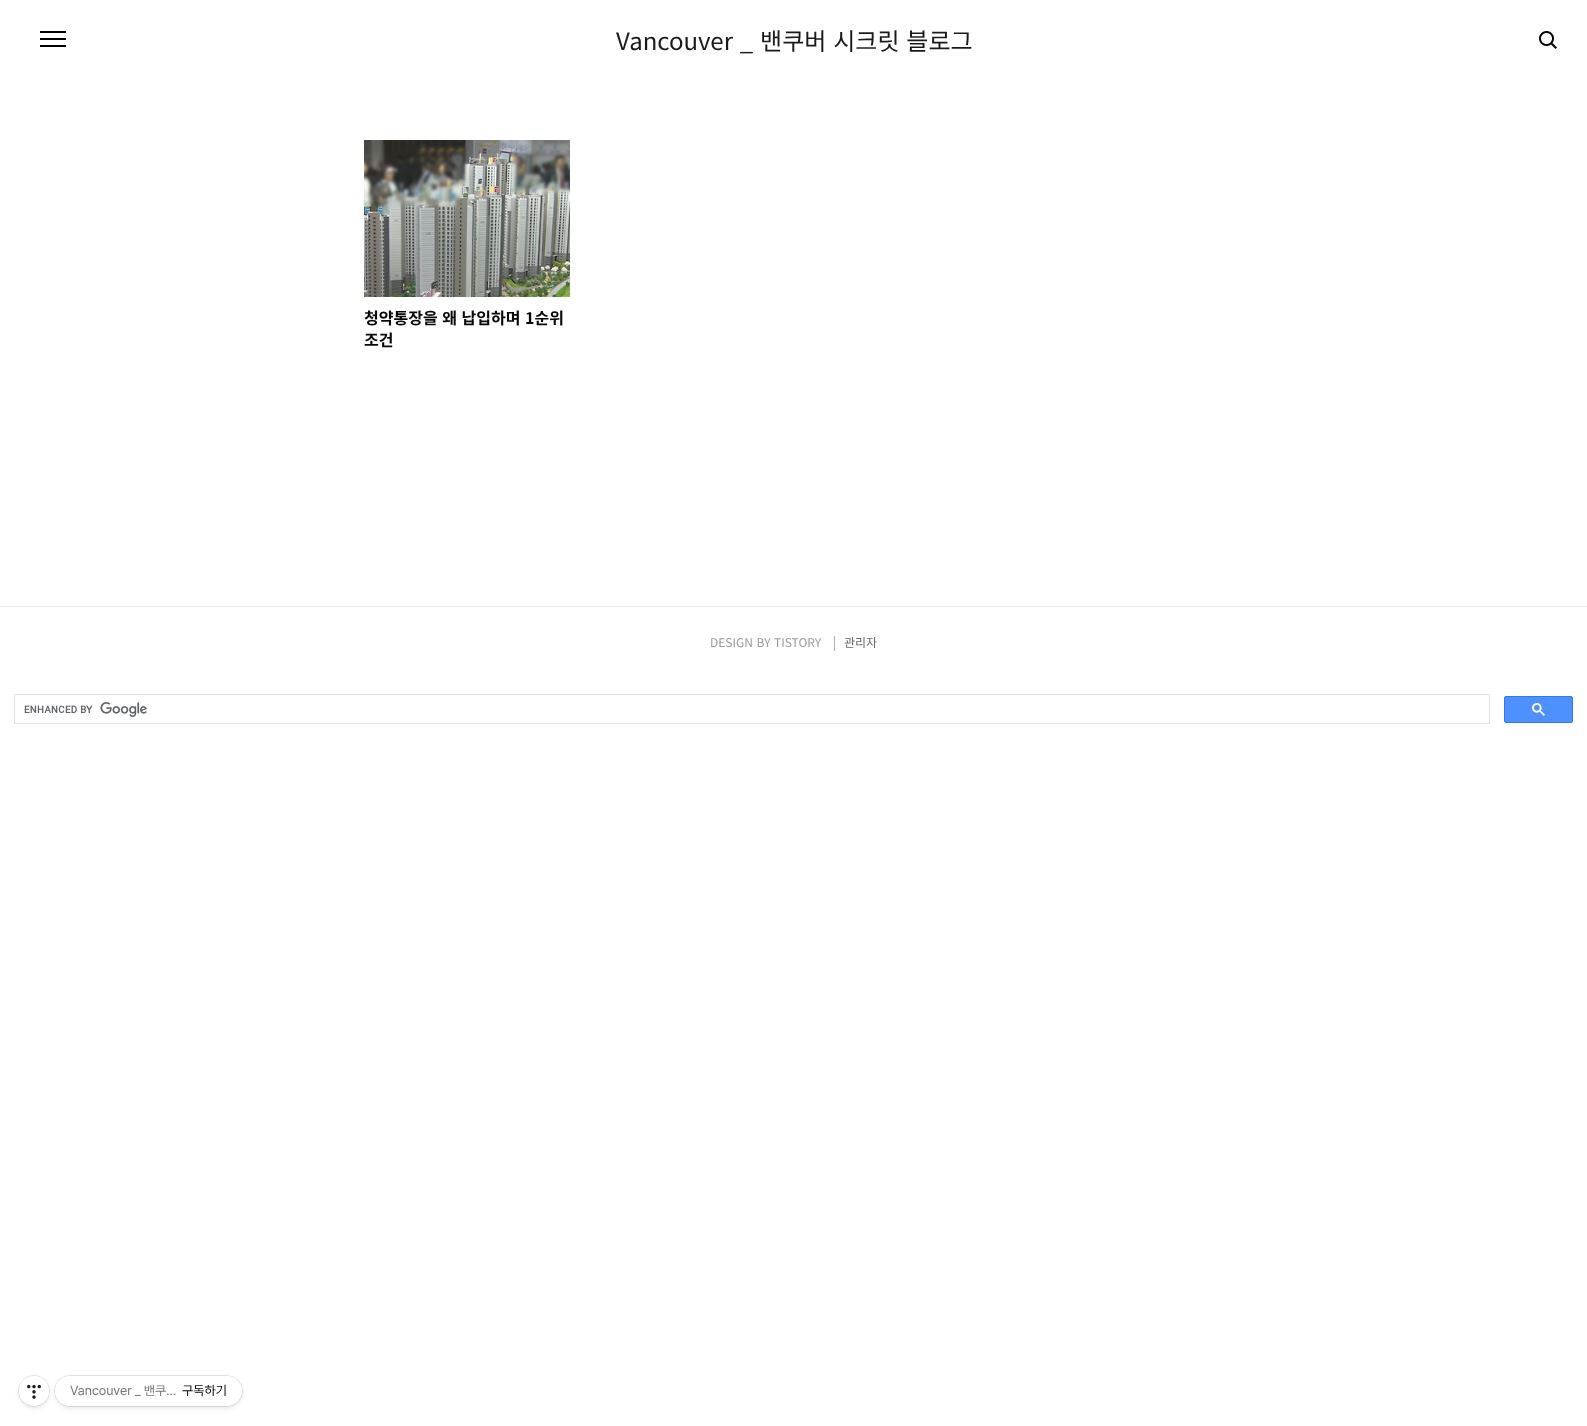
<svg xmlns="http://www.w3.org/2000/svg" width="1587" height="1426" viewBox="0 0 1587 1426">
  <rect width="100%" height="100%" fill="#fff"/>
  <path d="M40 31h26v2H40z" fill="#000"/>
  <path d="M40 38h26v2H40z" fill="#000"/>
  <path d="M40 45h26v2H40z" fill="#000"/>
  <image x="1539" y="31" width="18" height="18" href="img/1.png"/>
  <image x="364" y="140" width="206" height="157" href="img/2.png"/>
  <path d="M0 606h1587v1H0z" fill="#ebebeb"/>
  <path d="M834 636h1v15H834z" fill="#b2b2b2"/>
  <path d="M14.5 694.5h1475v29H14.5z" fill="none" stroke="#dfe1e5"/>
  <image x="24" y="702" width="123" height="15" href="img/3.png"/>
  <rect x="1504.5" y="696.5" width="68" height="26" rx="1.5" fill="#4d90fe" stroke="#3079ed"/>
  <image x="1532" y="703" width="13" height="13" href="img/4.png"/>
  <rect x="19" y="1378" width="30" height="30" rx="15" fill="#0000001a" filter="blur(2.5px)"/>
  <circle cx="34" cy="1391" r="15.5" fill="none" stroke="#0000001a"/>
  <circle cx="34" cy="1391" r="15" fill="#fff"/>
  <image x="27" y="1384" width="14" height="15" href="img/5.png"/>
  <rect x="55" y="1378" width="187" height="30" rx="15" fill="#0000001a" filter="blur(2.5px)"/>
  <rect x="54.5" y="1375.5" width="188" height="31" rx="15.5" fill="none" stroke="#0000001a"/>
  <rect x="55" y="1376" width="187" height="30" rx="15" fill="#fff"/>
  <text x="616" y="50" word-spacing="1.5" font-family="Noto Sans KR" font-size="24" fill="#1a1a1a">Vancouver _ 밴쿠버 시크릿 블로그</text>
  <g font-family="Noto Sans KR" font-size="16" font-weight="bold" fill="#080808">
    <text x="364" y="324" word-spacing="1">청약통장을 왜 납입하며 1순위</text>
    <text x="364" y="346">조건</text>
  </g>
  <g font-family="Noto Sans KR" font-size="12" fill="#9b9b9b">
    <text x="710" y="647" word-spacing="1">DESIGN BY</text>
    <text x="774" y="647">TISTORY</text>
  </g>
  <text x="844" y="647" font-family="Noto Sans KR" font-size="12" fill="#666">관리자</text>
  <text x="70" y="1395" font-family="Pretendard" font-size="13" fill="#777">Vancouver _ 밴쿠…</text>
  <text x="182" y="1395" font-family="Pretendard" font-size="13" fill="#000">구독하기</text>
</svg>
